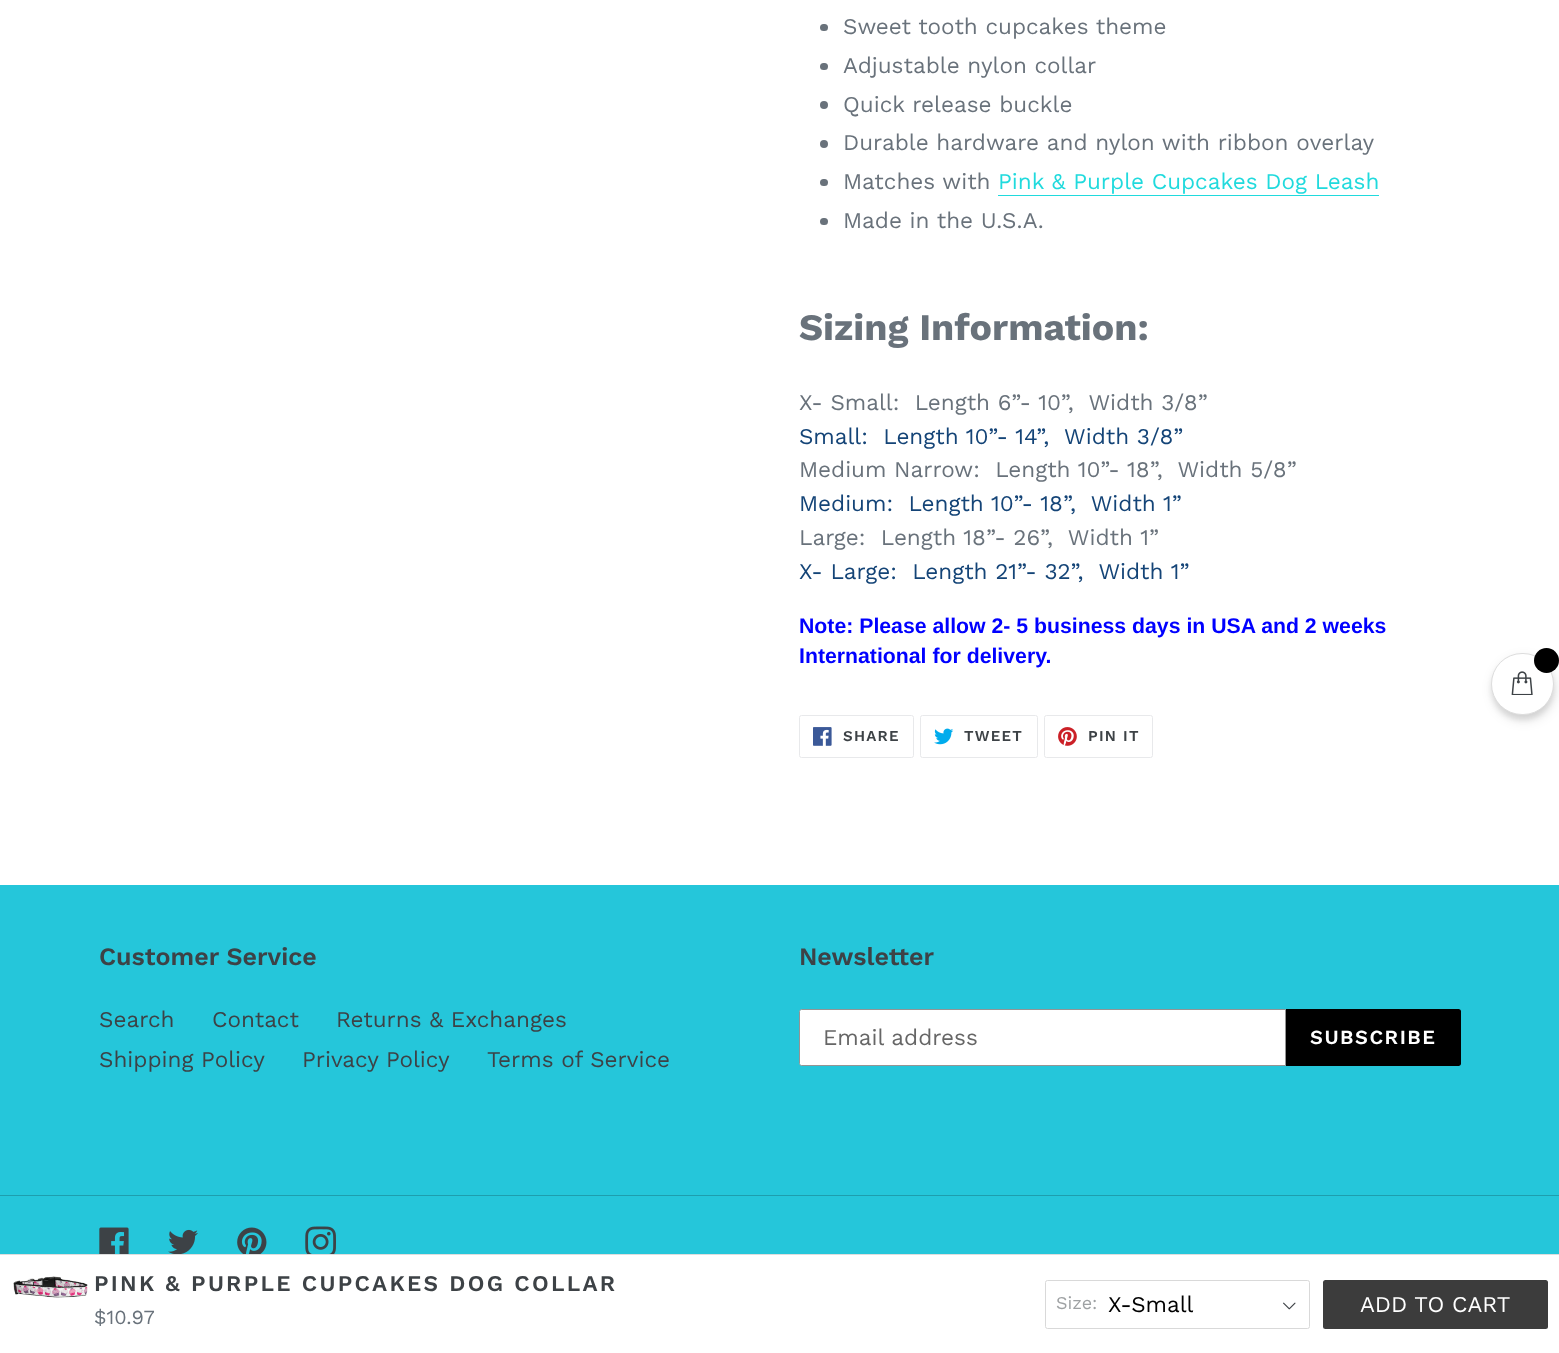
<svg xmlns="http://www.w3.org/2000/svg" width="1559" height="1353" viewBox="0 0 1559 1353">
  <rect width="100%" height="100%" fill="#fff"/>
  <rect x="820" y="24" width="8" height="7" rx="3.5" fill="#69727b"/>
  <rect x="820" y="63" width="8" height="7" rx="3.5" fill="#69727b"/>
  <circle cx="824" cy="105" r="4" fill="#69727b"/>
  <circle cx="824" cy="144" r="4" fill="#69727b"/>
  <rect x="820" y="179" width="8" height="7" rx="3.5" fill="#69727b"/>
  <path d="M998 195h381v1H998z" fill="#20dadd"/>
  <rect x="820" y="218" width="8" height="7" rx="3.5" fill="#69727b"/>
  <rect x="799.5" y="715.5" width="114" height="42" rx="2" fill="none" stroke="#e8e9eb"/>
  <image x="813" y="727" width="19" height="19" href="img/1.png"/>
  <rect x="920.5" y="715.5" width="117" height="42" rx="2" fill="none" stroke="#e8e9eb"/>
  <image x="934" y="728" width="20" height="17" href="img/2.png"/>
  <rect x="1044.5" y="715.5" width="108" height="42" rx="2" fill="none" stroke="#e8e9eb"/>
  <image x="1058" y="727" width="19" height="19" href="img/3.png"/>
  <path d="M0 885h1559v369H0z" fill="#25c6da"/>
  <path d="M801.5 1009.5H1285.5V1065.5H801.5C800.5 1065.5 799.5 1064.5 799.5 1063.5V1011.5C799.5 1010.5 800.5 1009.5 801.5 1009.5Z" fill="#fff" stroke="#949494"/>
  <path d="M1286 1009H1458.5C1460 1009 1461 1010 1461 1011.5V1063.5C1461 1065 1460 1066 1458.5 1066H1286Z" fill="#000"/>
  <path d="M0 1195h1559v1H0z" fill="#1e9eae"/>
  <image x="99" y="1227" width="30" height="27" href="img/4.png"/>
  <image x="168" y="1229" width="30" height="25" href="img/5.png"/>
  <image x="237" y="1227" width="30" height="27" href="img/6.png"/>
  <image x="305" y="1226" width="31" height="28" href="img/7.png"/>
  <rect x="1491" y="658" width="63" height="62" rx="31" fill="#00000014" filter="blur(2.5px)"/>
  <rect x="1493" y="658" width="62" height="62" rx="31" fill="#0000001f" filter="blur(6px)"/>
  <rect x="1491.5" y="653.5" width="62" height="61" rx="30.5" fill="#fff" stroke="#ddd"/>
  <circle cx="1546.5" cy="660.5" r="12.5" fill="#000"/>
  <image x="1511" y="671" width="22" height="24" href="img/8.png"/>
  <path d="M0 1254h1559v1H0z" fill="#ddd"/>
  <image x="13" y="1276" width="75" height="22" href="img/9.png"/>
  <rect x="1045.5" y="1280.5" width="264" height="48" rx="2" fill="none" stroke="#d9d9d9"/>
  <image x="1283" y="1302" width="13" height="8" href="img/10.png"/>
  <rect x="1323" y="1280" width="225" height="49" rx="2.5" fill="#3c3c3c"/>
  <g font-family="Work Sans" font-size="22.5" fill="#69727b">
    <text x="843" y="34">Sweet tooth cupcakes theme</text>
    <text x="843" y="73">Adjustable nylon collar</text>
    <text x="843" y="112">Quick release buckle</text>
    <text x="843" y="150">Durable hardware and nylon with ribbon overlay</text>
    <text x="843" y="189">Matches with</text>
  </g>
  <text x="998" y="189" font-family="Work Sans" font-size="22.5" fill="#20dadd">Pink &amp; Purple Cupcakes Dog Leash</text>
  <text x="843" y="228" font-family="Work Sans" font-size="22.5" fill="#69727b">Made in the U.S.A.</text>
  <text x="799" y="340" font-family="Work Sans" font-size="37.5" font-weight="bold" fill="#69727b">Sizing Information:</text>
  <text x="799" y="410" font-family="Work Sans" font-size="22.5" fill="#69727b" xml:space="preserve">X- Small:  Length 6”- 10”,  Width 3/8”</text>
  <text x="799" y="444" font-family="Work Sans" font-size="22.5" fill="#144477" xml:space="preserve">Small:  Length 10”- 14”,  Width 3/8”</text>
  <text x="799" y="477" font-family="Work Sans" font-size="22.5" fill="#69727b" xml:space="preserve">Medium Narrow:  Length 10”- 18”,  Width 5/8”</text>
  <text x="799" y="511" font-family="Work Sans" font-size="22.5" fill="#144477" xml:space="preserve">Medium:  Length 10”- 18”,  Width 1”</text>
  <text x="799" y="545" font-family="Work Sans" font-size="22.5" fill="#69727b" xml:space="preserve">Large:  Length 18”- 26”,  Width 1”</text>
  <text x="799" y="579" font-family="Work Sans" font-size="22.5" fill="#144477" xml:space="preserve">X- Large:  Length 21”- 32”,  Width 1”</text>
  <g font-family="Liberation Sans" font-size="21.25" font-weight="bold" fill="#00f">
    <text x="799" y="633">Note: Please allow 2- 5 business days in USA and 2 weeks</text>
    <text x="799" y="663">International for delivery.</text>
  </g>
  <g font-family="Work Sans" font-size="15" font-weight="600" letter-spacing="1.25" fill="#3d4246">
    <text x="843" y="741">SHARE</text>
    <text x="964" y="741">TWEET</text>
    <text x="1088" y="741">PIN IT</text>
  </g>
  <text x="99" y="965" font-family="Work Sans" font-size="25" font-weight="600" fill="#3d4246">Customer Service</text>
  <g font-family="Work Sans" font-size="22.5" fill="#3d4246">
    <text x="99" y="1027">Search</text>
    <text x="212" y="1027">Contact</text>
    <text x="336" y="1027">Returns &amp; Exchanges</text>
    <text x="99" y="1067">Shipping Policy</text>
    <text x="302" y="1067">Privacy Policy</text>
    <text x="487" y="1067">Terms of Service</text>
  </g>
  <text x="799" y="965" font-family="Work Sans" font-size="25" font-weight="600" fill="#3d4246">Newsletter</text>
  <text x="823" y="1045" font-family="Work Sans" font-size="22.5" fill="#666">Email address</text>
  <text x="1310" y="1044" font-family="Work Sans" font-size="20" font-weight="600" letter-spacing="1.5" fill="#fff">SUBSCRIBE</text>
  <text x="94" y="1291" font-family="Work Sans" font-size="22.5" font-weight="600" letter-spacing="2.25" fill="#3d4246">PINK &amp; PURPLE CUPCAKES DOG COLLAR</text>
  <text x="94" y="1324" font-family="Work Sans" font-size="20" fill="#69727b">$10.97</text>
  <text x="1056" y="1309" font-family="Work Sans" font-size="18" fill="#9ea1a3">Size:</text>
  <text x="1108" y="1312" font-family="Work Sans" font-size="22.5" fill="#000">X-Small</text>
  <text x="1360" y="1312" font-family="Work Sans" font-size="22.5" fill="#fff">ADD TO CART</text>
</svg>
